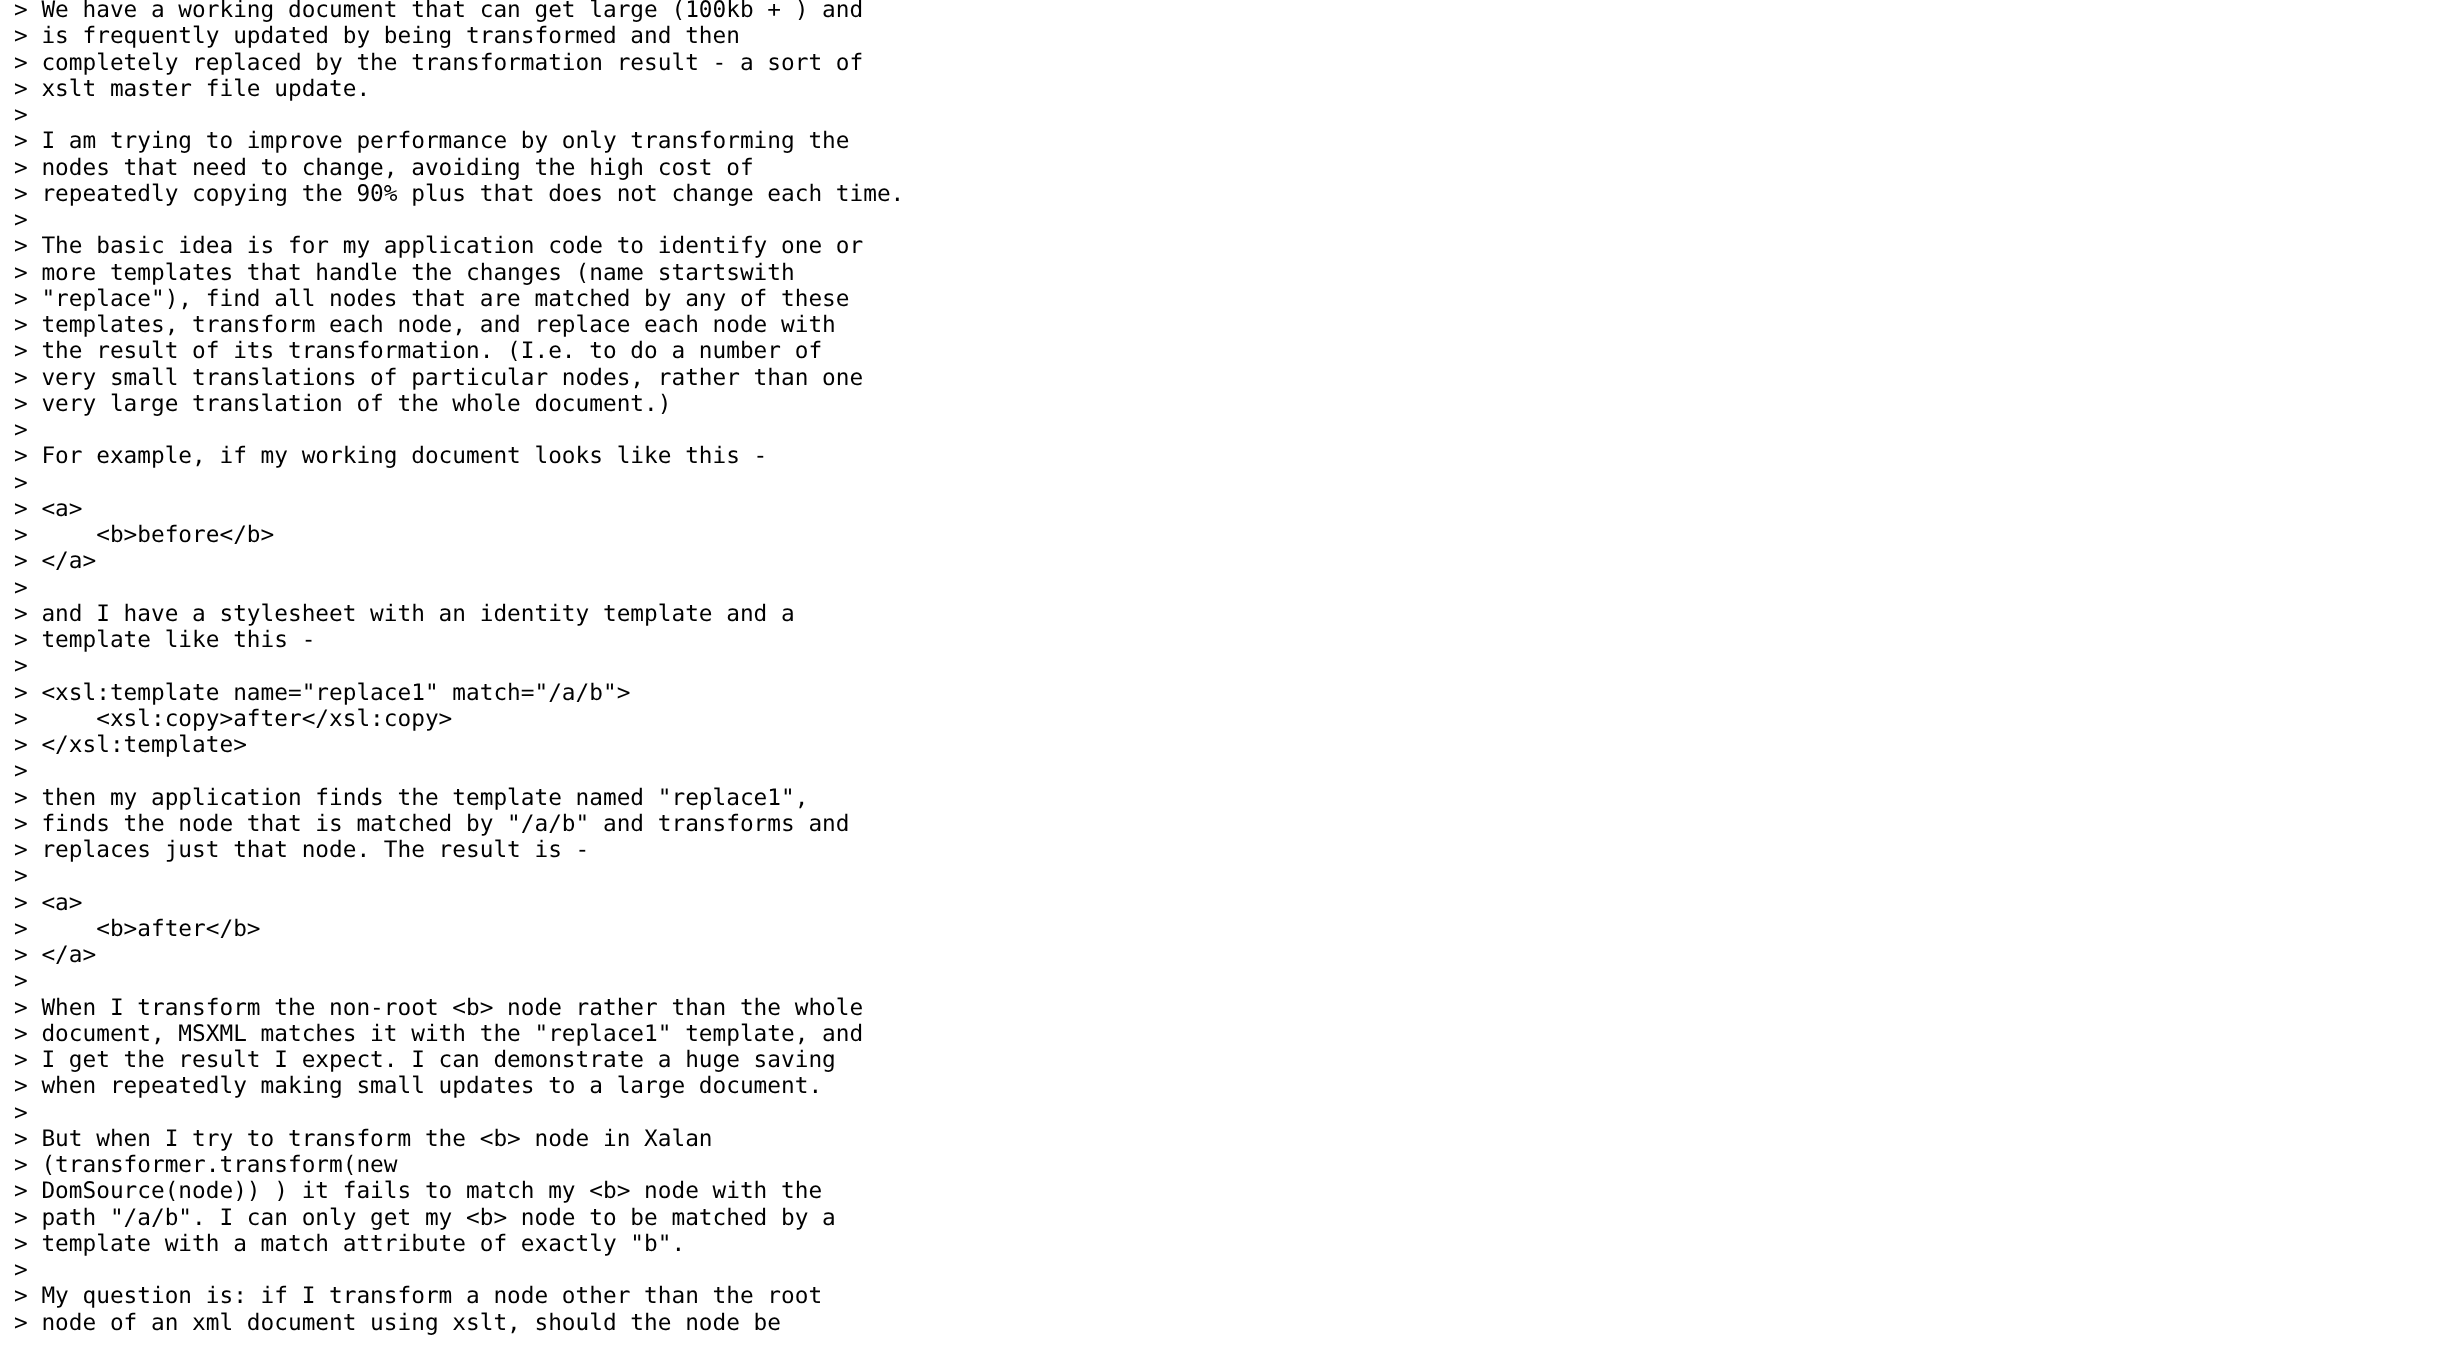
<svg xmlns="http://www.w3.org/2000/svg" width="2456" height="1348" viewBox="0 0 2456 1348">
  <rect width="100%" height="100%" fill="#fff"/>
  <g font-family="DejaVu Sans Mono" font-size="22.75" fill="#000">
    <text x="14" y="17">&gt; We have a working document that can get large (100kb + ) and</text>
    <text x="14" y="43">&gt; is frequently updated by being transformed and then</text>
    <text x="14" y="70">&gt; completely replaced by the transformation result - a sort of</text>
    <text x="14" y="96">&gt; xslt master file update.</text>
    <text x="14" y="122">&gt;</text>
    <text x="14" y="148">&gt; I am trying to improve performance by only transforming the</text>
    <text x="14" y="175">&gt; nodes that need to change, avoiding the high cost of</text>
    <text x="14" y="201">&gt; repeatedly copying the 90% plus that does not change each time.</text>
    <text x="14" y="227">&gt;</text>
    <text x="14" y="253">&gt; The basic idea is for my application code to identify one or</text>
    <text x="14" y="280">&gt; more templates that handle the changes (name startswith</text>
    <text x="14" y="306">&gt; "replace"), find all nodes that are matched by any of these</text>
    <text x="14" y="332">&gt; templates, transform each node, and replace each node with</text>
    <text x="14" y="358">&gt; the result of its transformation. (I.e. to do a number of</text>
    <text x="14" y="385">&gt; very small translations of particular nodes, rather than one</text>
    <text x="14" y="411">&gt; very large translation of the whole document.)</text>
    <text x="14" y="437">&gt;</text>
    <text x="14" y="463">&gt; For example, if my working document looks like this -</text>
    <text x="14" y="490">&gt;</text>
    <text x="14" y="516">&gt; &lt;a&gt;</text>
    <text x="14" y="542" xml:space="preserve">&gt;     &lt;b&gt;before&lt;/b&gt;</text>
    <text x="14" y="568">&gt; &lt;/a&gt;</text>
    <text x="14" y="595">&gt;</text>
    <text x="14" y="621">&gt; and I have a stylesheet with an identity template and a</text>
    <text x="14" y="647">&gt; template like this -</text>
    <text x="14" y="673">&gt;</text>
    <text x="14" y="700">&gt; &lt;xsl:template name="replace1" match="/a/b"&gt;</text>
    <text x="14" y="726" xml:space="preserve">&gt;     &lt;xsl:copy&gt;after&lt;/xsl:copy&gt;</text>
    <text x="14" y="752">&gt; &lt;/xsl:template&gt;</text>
    <text x="14" y="778">&gt;</text>
    <text x="14" y="805">&gt; then my application finds the template named "replace1",</text>
    <text x="14" y="831">&gt; finds the node that is matched by "/a/b" and transforms and</text>
    <text x="14" y="857">&gt; replaces just that node. The result is -</text>
    <text x="14" y="883">&gt;</text>
    <text x="14" y="910">&gt; &lt;a&gt;</text>
    <text x="14" y="936" xml:space="preserve">&gt;     &lt;b&gt;after&lt;/b&gt;</text>
    <text x="14" y="962">&gt; &lt;/a&gt;</text>
    <text x="14" y="988">&gt;</text>
    <text x="14" y="1015">&gt; When I transform the non-root &lt;b&gt; node rather than the whole</text>
    <text x="14" y="1041">&gt; document, MSXML matches it with the "replace1" template, and</text>
    <text x="14" y="1067">&gt; I get the result I expect. I can demonstrate a huge saving</text>
    <text x="14" y="1093">&gt; when repeatedly making small updates to a large document.</text>
    <text x="14" y="1120">&gt;</text>
    <text x="14" y="1146">&gt; But when I try to transform the &lt;b&gt; node in Xalan</text>
    <text x="14" y="1172">&gt; (transformer.transform(new</text>
    <text x="14" y="1198">&gt; DomSource(node)) ) it fails to match my &lt;b&gt; node with the</text>
    <text x="14" y="1225">&gt; path "/a/b". I can only get my &lt;b&gt; node to be matched by a</text>
    <text x="14" y="1251">&gt; template with a match attribute of exactly "b".</text>
    <text x="14" y="1277">&gt;</text>
    <text x="14" y="1303">&gt; My question is: if I transform a node other than the root</text>
    <text x="14" y="1330">&gt; node of an xml document using xslt, should the node be</text>
  </g>
</svg>
